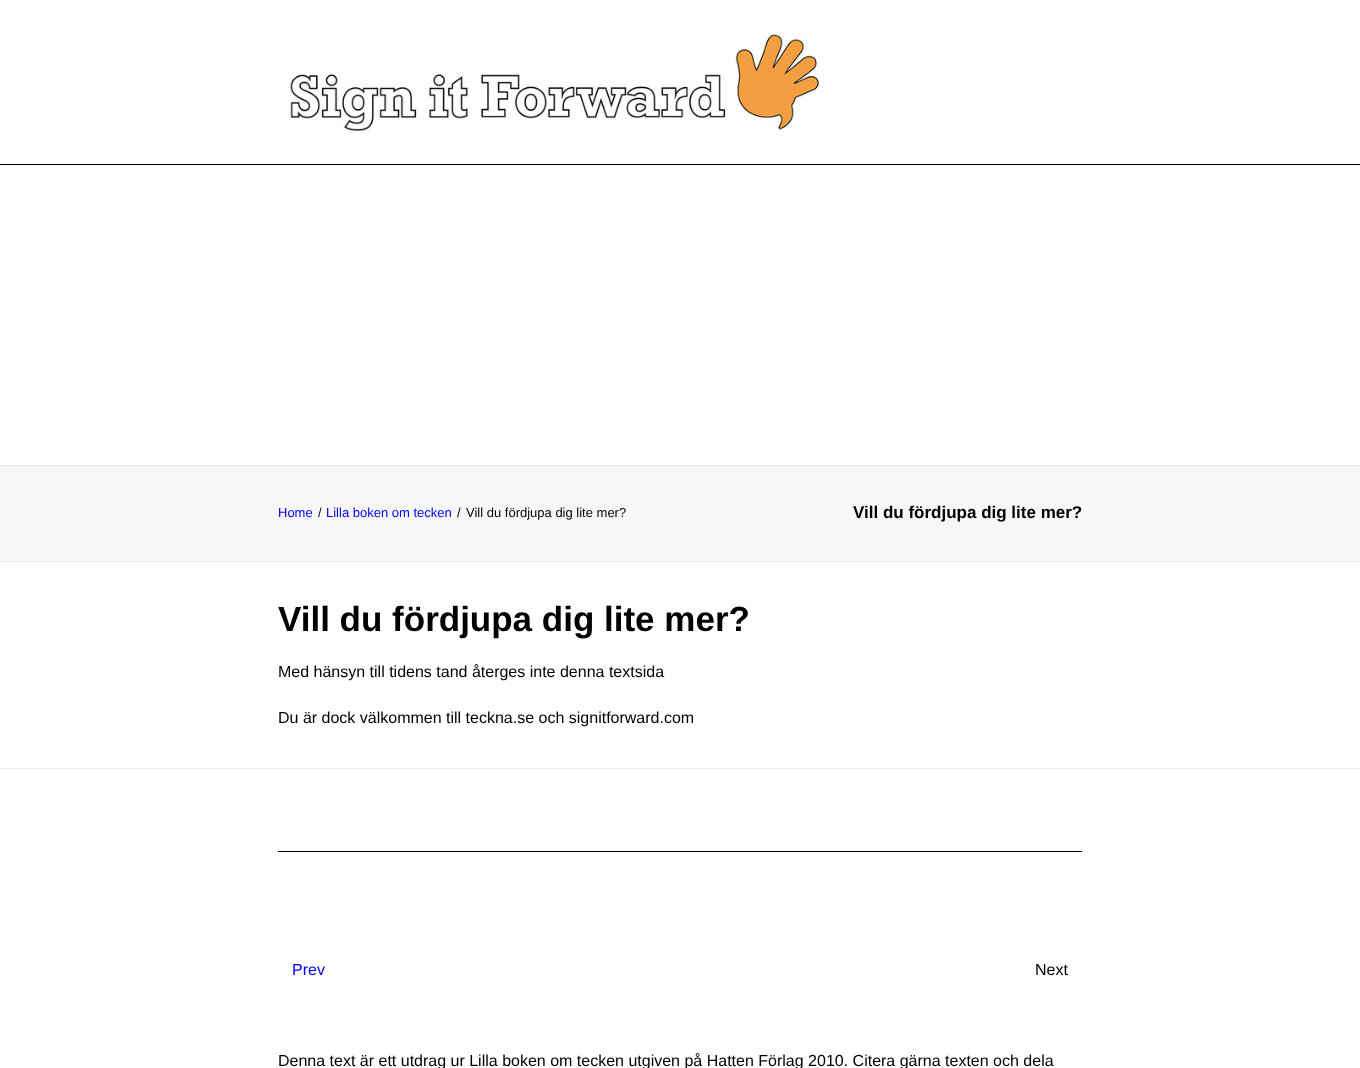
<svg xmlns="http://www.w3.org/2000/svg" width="1360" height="1068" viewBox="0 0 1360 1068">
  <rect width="100%" height="100%" fill="#fff"/>
  <path d="M0 164h1360v1H0z" fill="#000"/>
  <image x="288" y="34" width="532" height="101" href="img/1.png"/>
  <path d="M0 466h1360v95H0z" fill="#f7f7f7"/>
  <path d="M0 465h1360v1H0z" fill="#eaeaea"/>
  <path d="M0 561h1360v1H0z" fill="#eaeaea"/>
  <path d="M0 768h1360v1H0z" fill="#eaeaea"/>
  <path d="M278 851h804v1H278z" fill="#000"/>
  <text x="278" y="517" font-family="Liberation Sans" font-size="13" fill="#00e">Home</text>
  <text x="318" y="517" font-family="Liberation Sans" font-size="13" fill="#000">/</text>
  <text x="326" y="517" font-family="Liberation Sans" font-size="13" fill="#00e">Lilla boken om tecken</text>
  <g font-family="Liberation Sans" font-size="13" fill="#000">
    <text x="457" y="517">/</text>
    <text x="466" y="517">Vill du fördjupa dig lite mer?</text>
  </g>
  <text x="853" y="518" font-family="Liberation Sans" font-size="17" font-weight="bold" fill="#000">Vill du fördjupa dig lite mer?</text>
  <text x="278" y="631" font-family="Liberation Sans" font-size="35" font-weight="bold" fill="#000">Vill du fördjupa dig lite mer?</text>
  <g font-family="Liberation Sans" font-size="16" fill="#000">
    <text x="278" y="677">Med hänsyn till tidens tand återges inte denna textsida</text>
    <text x="278" y="723">Du är dock välkommen till teckna.se och signitforward.com</text>
  </g>
  <text x="292" y="975" font-family="Liberation Sans" font-size="16" fill="#00e">Prev</text>
  <g font-family="Liberation Sans" font-size="16" fill="#000">
    <text x="1035" y="975">Next</text>
    <text x="278" y="1066">Denna text är ett utdrag ur Lilla boken om tecken utgiven på Hatten Förlag 2010. Citera gärna texten och dela</text>
  </g>
</svg>
